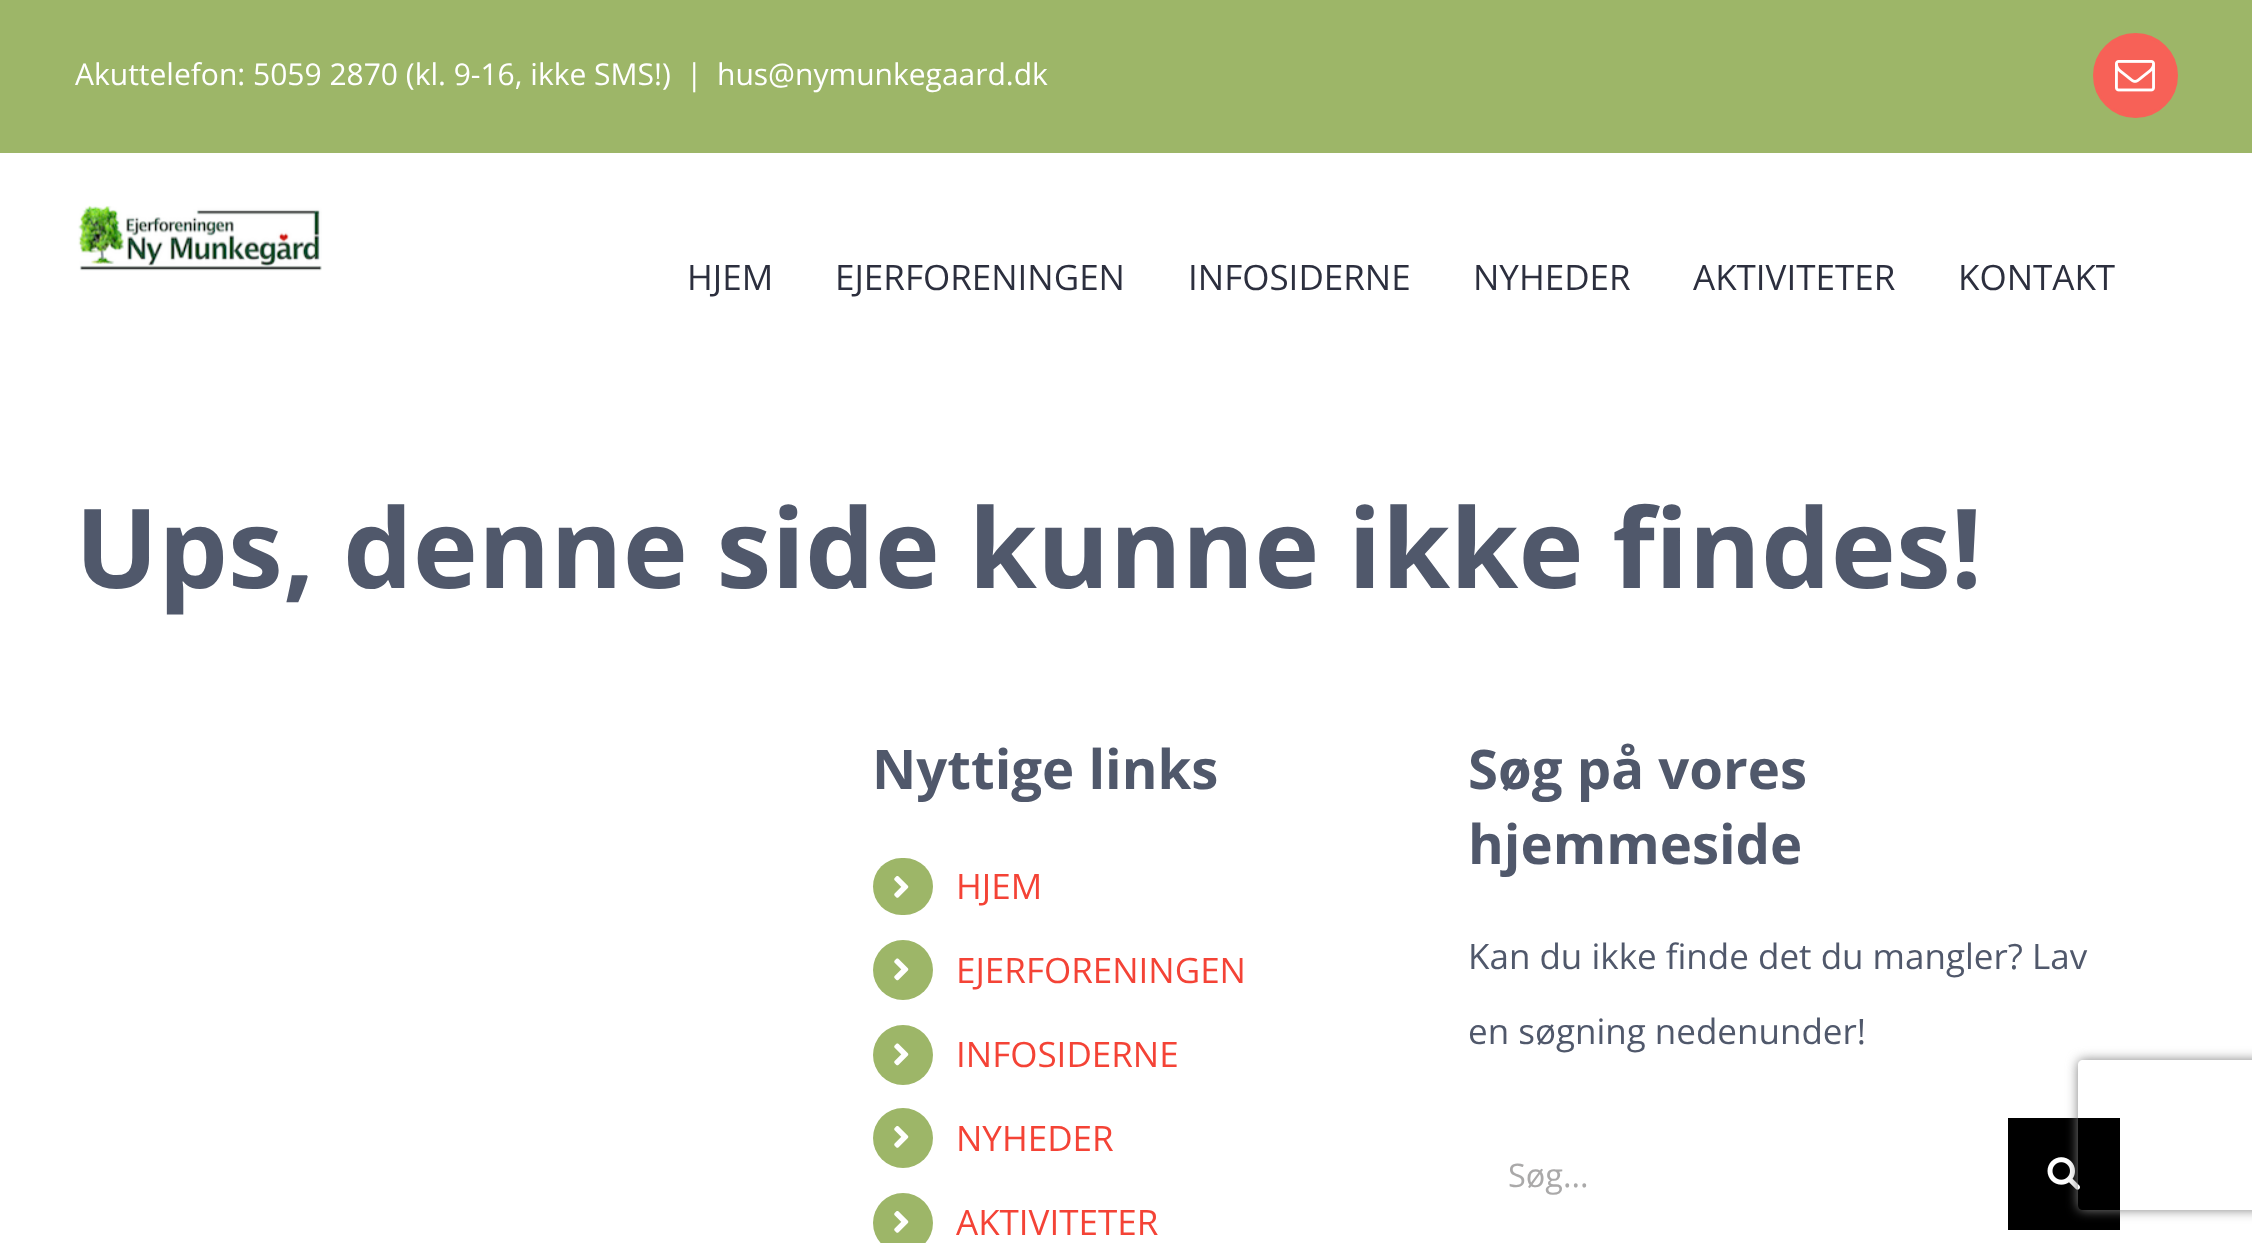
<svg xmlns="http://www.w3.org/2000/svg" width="2252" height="1243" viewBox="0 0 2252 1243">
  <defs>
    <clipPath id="clip1"><path d="M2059 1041H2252V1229H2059ZM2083 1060H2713C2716 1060 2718 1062 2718 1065V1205C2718 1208 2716 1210 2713 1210H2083C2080 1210 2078 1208 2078 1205V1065C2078 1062 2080 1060 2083 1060Z" clip-rule="evenodd"/></clipPath>
  </defs>
  <rect width="100%" height="100%" fill="#fff"/>
  <path d="M0 0h2252v153H0z" fill="#9db668"/>
  <circle cx="2135.5" cy="75.5" r="41" fill="#f76157" stroke="#f76157" stroke-width="3"/>
  <image x="2115" y="60" width="40" height="32" href="img/1.png"/>
  <image x="78" y="205" width="244" height="66" href="img/2.png"/>
  <rect x="873" y="858" width="60" height="57" rx="28.5" fill="#9db668"/>
  <image x="894" y="876" width="15" height="22" href="img/3.png"/>
  <circle cx="903" cy="970" r="30" fill="#9db668"/>
  <image x="894" y="958" width="15" height="23" href="img/4.png"/>
  <circle cx="903" cy="1055" r="30" fill="#9db668"/>
  <image x="894" y="1043" width="15" height="23" href="img/4.png"/>
  <circle cx="903" cy="1138" r="30" fill="#9db668"/>
  <image x="894" y="1126" width="15" height="22" href="img/3.png"/>
  <circle cx="903" cy="1223" r="30" fill="#9db668"/>
  <image x="894" y="1211" width="15" height="22" href="img/3.png"/>
  <path d="M2008 1118h112v112H2008z" fill="#000"/>
  <image x="2047" y="1157" width="33" height="33" href="img/5.png"/>
  <g clip-path="url(#clip1)">
    <rect x="2078" y="1060" width="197" height="150" rx="5" fill="#808080" filter="blur(6px)"/>
  </g>
  <g font-family="Open Sans" font-size="30" fill="#fff">
    <text x="75" y="85">Akuttelefon: 5059 2870 (kl. 9-16, ikke SMS!)</text>
    <text x="686" y="85">|</text>
    <text x="717" y="85">hus@nymunkegaard.dk</text>
  </g>
  <g font-family="Open Sans" font-size="35" fill="#2c2f3e">
    <text x="687" y="290">HJEM</text>
    <text x="835" y="290">EJERFORENINGEN</text>
    <text x="1188" y="290">INFOSIDERNE</text>
    <text x="1473" y="290">NYHEDER</text>
    <text x="1693" y="290">AKTIVITETER</text>
    <text x="1958" y="290">KONTAKT</text>
  </g>
  <text x="75" y="588" font-family="Open Sans" font-size="110.25" font-weight="bold" fill="#50586b">Ups, denne side kunne ikke findes!</text>
  <text x="872" y="789" font-family="Open Sans" font-size="54.5" font-weight="bold" fill="#50586b">Nyttige links</text>
  <g font-family="Open Sans" font-size="35" fill="#f44336">
    <text x="956" y="899">HJEM</text>
    <text x="956" y="983">EJERFORENINGEN</text>
    <text x="956" y="1067">INFOSIDERNE</text>
    <text x="956" y="1151">NYHEDER</text>
    <text x="956" y="1235">AKTIVITETER</text>
  </g>
  <g font-family="Open Sans" font-size="54.5" font-weight="bold" fill="#50586b">
    <text x="1468" y="789">Søg på vores</text>
    <text x="1468" y="864">hjemmeside</text>
  </g>
  <g font-family="Open Sans" font-size="35" fill="#50586b">
    <text x="1468" y="969">Kan du ikke finde det du mangler? Lav</text>
    <text x="1468" y="1044">en søgning nedenunder!</text>
  </g>
  <text x="1508" y="1187" font-family="Open Sans" font-size="32.5" fill="#aaa9a9">Søg...</text>
</svg>
